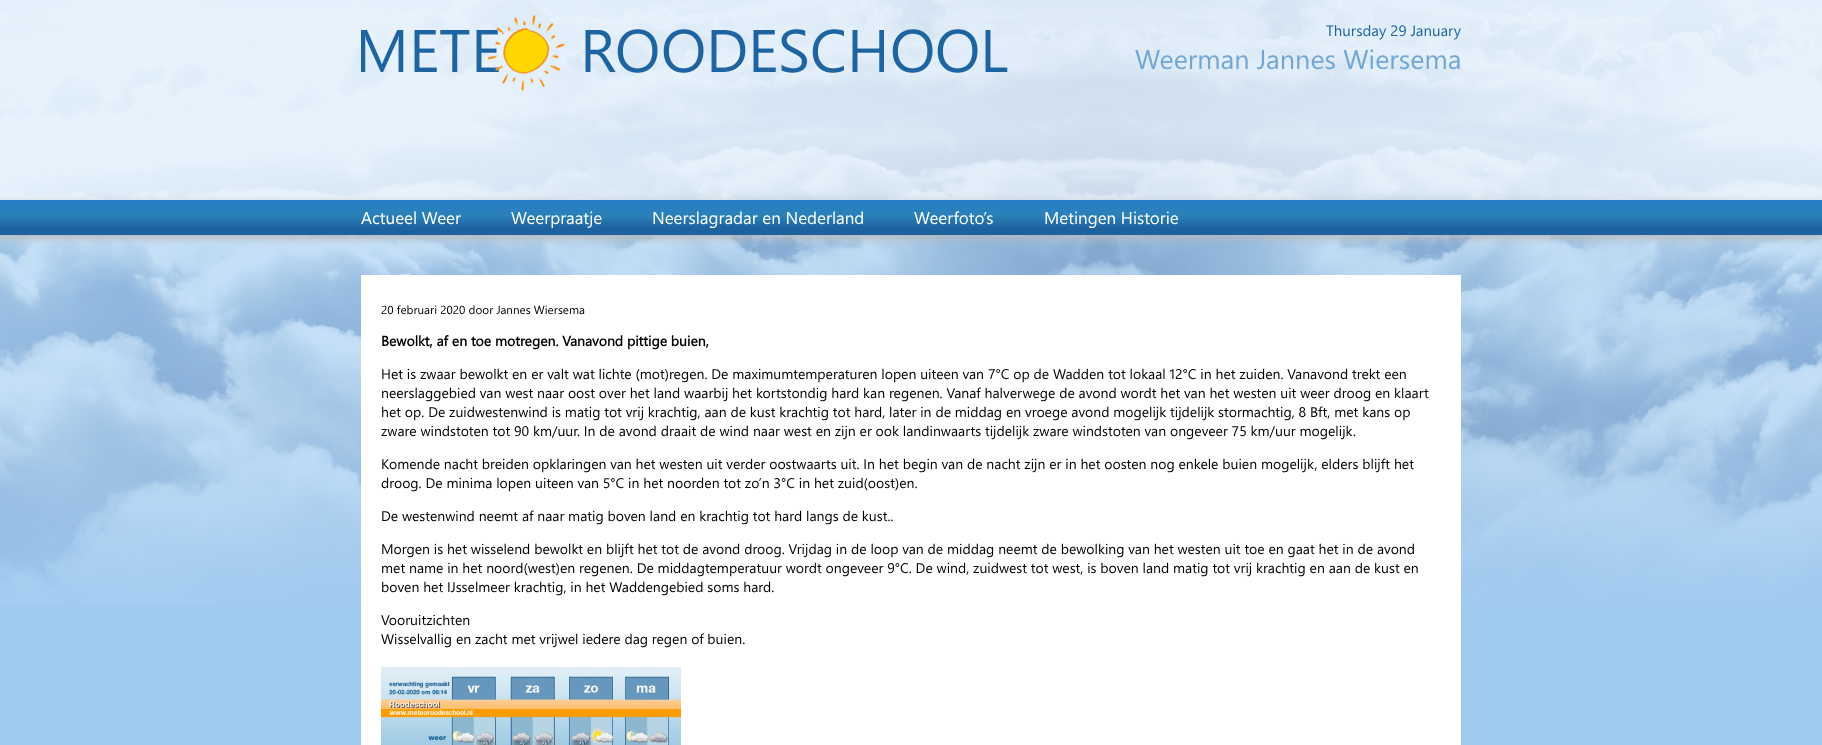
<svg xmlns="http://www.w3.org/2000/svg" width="1822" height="745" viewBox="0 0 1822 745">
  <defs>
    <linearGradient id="g1" gradientUnits="userSpaceOnUse" x1="911" y1="200" x2="911" y2="235"><stop offset="0" stop-color="#277ec9"/><stop offset="0.45" stop-color="#2a81b7"/><stop offset="0.8" stop-color="#1d629e"/></linearGradient>
  </defs>
  <rect width="100%" height="100%" fill="#a0cbf1"/>
  <image x="0" y="0" width="1822" height="605" href="img/1.png"/>
  <path d="M0 0h1822v200H0z" fill="#ffffff99"/>
  <image x="361" y="15" width="647" height="76" href="img/2.png"/>
  <path d="M0 203h1822v35H0z" fill="#b8b8b8" filter="blur(4px)"/>
  <path d="M0 200h1822v35H0z" fill="url(#g1)"/>
  <path d="M361 275h1100v470H361z" fill="#fff"/>
  <image x="381" y="667" width="300" height="78" href="img/3.png"/>
  <text x="1326" y="36" font-family="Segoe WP" font-size="15" fill="#1d64a1">Thursday 29 January</text>
  <text x="1135" y="69" font-family="Segoe WP" font-size="27" fill="#72a7d5">Weerman Jannes Wiersema</text>
  <g font-family="Segoe WP" font-size="17" fill="#fff">
    <text x="361" y="224">Actueel Weer</text>
    <text x="511" y="224">Weerpraatje</text>
    <text x="652" y="224">Neerslagradar en Nederland</text>
    <text x="914" y="224">Weerfoto’s</text>
    <text x="1044" y="224">Metingen Historie</text>
  </g>
  <text x="381" y="314" font-family="Segoe WP" font-size="11.7" fill="#000">20 februari 2020 door Jannes Wiersema</text>
  <text x="381" y="346" font-family="Segoe WP" font-size="14" font-weight="bold" fill="#000">Bewolkt, af en toe motregen. Vanavond pittige buien,</text>
  <g font-family="Segoe WP" font-size="14" fill="#000">
    <text x="381" y="379">Het is zwaar bewolkt en er valt wat lichte (mot)regen. De maximumtemperaturen lopen uiteen van 7°C op de Wadden tot lokaal 12°C in het zuiden. Vanavond trekt een</text>
    <text x="381" y="398">neerslaggebied van west naar oost over het land waarbij het kortstondig hard kan regenen. Vanaf halverwege de avond wordt het van het westen uit weer droog en klaart</text>
    <text x="381" y="417">het op. De zuidwestenwind is matig tot vrij krachtig, aan de kust krachtig tot hard, later in de middag en vroege avond mogelijk tijdelijk stormachtig, 8 Bft, met kans op</text>
    <text x="381" y="436">zware windstoten tot 90 km/uur. In de avond draait de wind naar west en zijn er ook landinwaarts tijdelijk zware windstoten van ongeveer 75 km/uur mogelijk.</text>
    <text x="381" y="469">Komende nacht breiden opklaringen van het westen uit verder oostwaarts uit. In het begin van de nacht zijn er in het oosten nog enkele buien mogelijk, elders blijft het</text>
    <text x="381" y="488">droog. De minima lopen uiteen van 5°C in het noorden tot zo’n 3°C in het zuid(oost)en.</text>
    <text x="381" y="521">De westenwind neemt af naar matig boven land en krachtig tot hard langs de kust..</text>
    <text x="381" y="554">Morgen is het wisselend bewolkt en blijft het tot de avond droog. Vrijdag in de loop van de middag neemt de bewolking van het westen uit toe en gaat het in de avond</text>
    <text x="381" y="573">met name in het noord(west)en regenen. De middagtemperatuur wordt ongeveer 9°C. De wind, zuidwest tot west, is boven land matig tot vrij krachtig en aan de kust en</text>
    <text x="381" y="592">boven het IJsselmeer krachtig, in het Waddengebied soms hard.</text>
    <text x="381" y="625">Vooruitzichten</text>
    <text x="381" y="644">Wisselvallig en zacht met vrijwel iedere dag regen of buien.</text>
  </g>
</svg>
